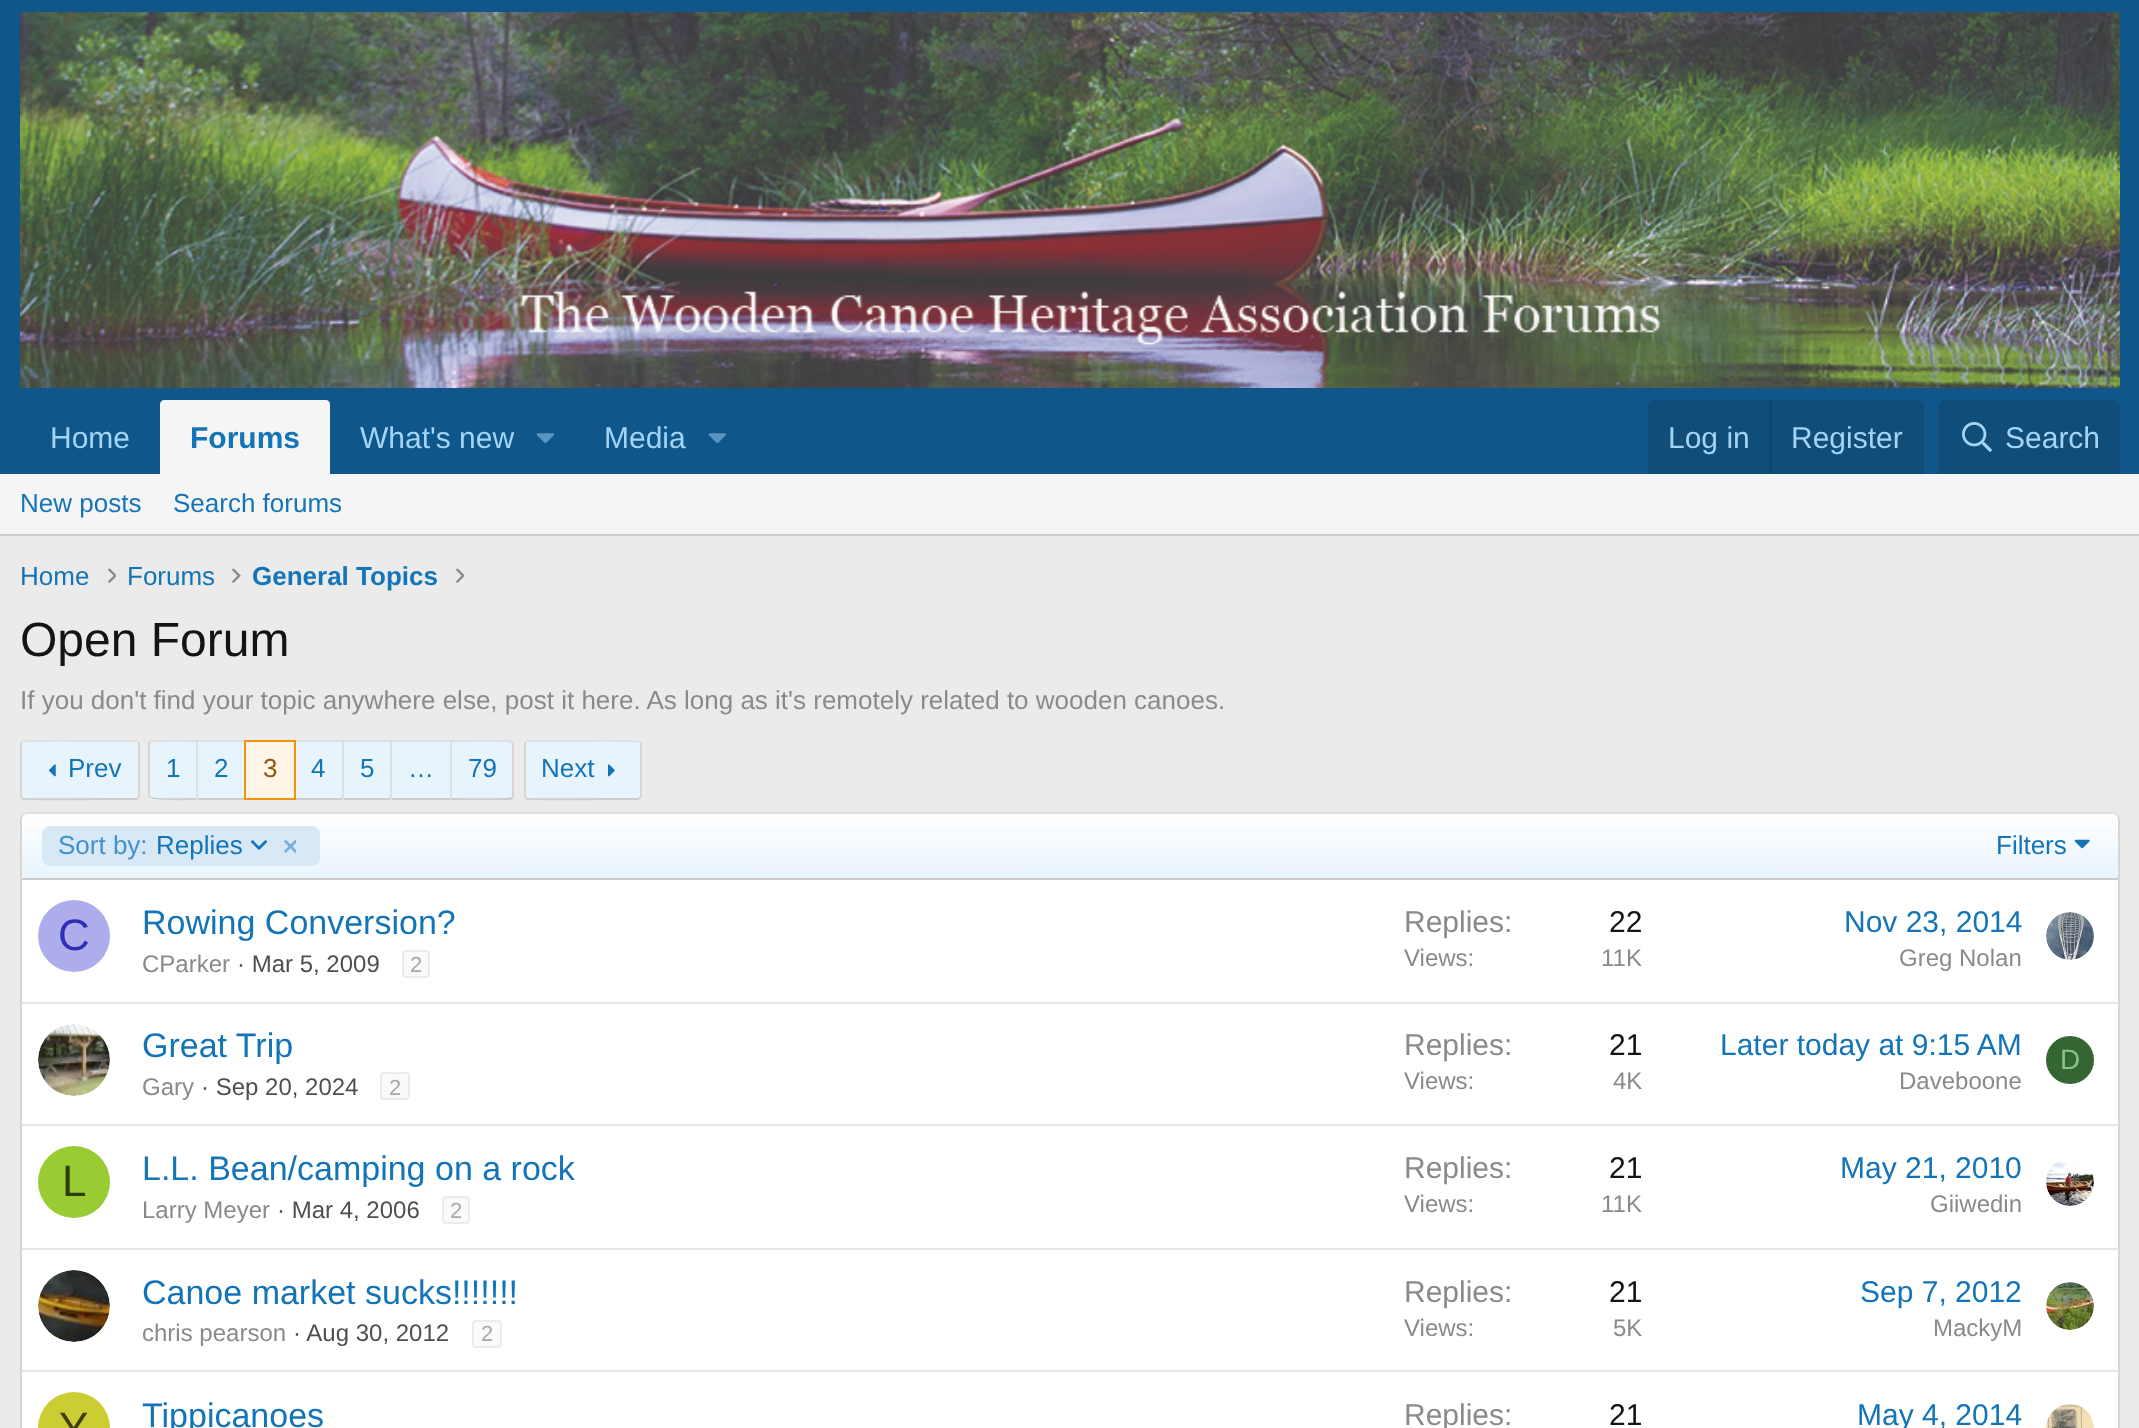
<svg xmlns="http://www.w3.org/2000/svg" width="2139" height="1428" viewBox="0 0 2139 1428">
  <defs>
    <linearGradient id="g1" gradientUnits="userSpaceOnUse" x1="1070" y1="878" x2="1070" y2="814"><stop offset="0" stop-color="#e8f4fc"/><stop offset="1" stop-color="#fff"/></linearGradient>
  </defs>
  <rect width="100%" height="100%" fill="#ebebeb"/>
  <path d="M0 0h2139v474H0z" fill="#0f578a"/>
  <image x="20" y="12" width="2100" height="376" href="img/1.png"/>
  <path d="M164 400H326C328 400 330 402 330 404V474H160V404C160 402 162 400 164 400Z" fill="#f5f5f5"/>
  <image x="536" y="433" width="18" height="11" href="img/2.png"/>
  <image x="708" y="433" width="18" height="11" href="img/2.png"/>
  <path d="M1656 400H1916C1920.5 400 1924 403.5 1924 408V474H1648V408C1648 403.5 1651.5 400 1656 400Z" fill="#104d78"/>
  <path d="M1770 400h2v74H1770z" fill="#114469"/>
  <path d="M1946 400H2112C2116.5 400 2120 403.5 2120 408V474H1938V408C1938 403.5 1941.5 400 1946 400Z" fill="#104d78"/>
  <image x="1962" y="422" width="30" height="30" href="img/3.png"/>
  <path d="M0 474h2139v60H0z" fill="#f5f5f5"/>
  <path d="M0 534h2139v2H0z" fill="#ccc"/>
  <image x="108" y="568" width="8" height="15" href="img/4.png"/>
  <image x="232" y="568" width="9" height="15" href="img/5.png"/>
  <image x="456" y="568" width="8" height="15" href="img/4.png"/>
  <rect x="20" y="740" width="120" height="60" rx="4" fill="#e8f4fc"/>
  <path d="M22 742L22.5 741.5C24.5 740 107.5 741 117.5 741H136L138 742" fill="none" stroke="#e0e0e0" stroke-width="2"/>
  <path d="M138 742L139 743.5V796.5L138 798" fill="none" stroke="#d6d6d6" stroke-width="2"/>
  <path d="M138 798L136 799H117.5C107.5 799 24.5 800 22.5 798.5L22 798" fill="none" stroke="#ccc" stroke-width="2"/>
  <path d="M22 798L21 796.5V743.5L22 742" fill="none" stroke="#d6d6d6" stroke-width="2"/>
  <image x="49" y="764" width="7" height="13" href="img/6.png"/>
  <path d="M152 740H196V800H152C150 800 148 798 148 796V744C148 742 150 740 152 740Z" fill="#e8f4fc"/>
  <path d="M152 740L149 741L151 743C152 741 191 742 196 742V740Z" fill="#e0e0e0"/>
  <path d="M196 800C190 800 152 801 150 798L151 797C152 799 191 798 196 798Z" fill="#ccc"/>
  <path d="M148 743V797L150 798L151 797L150 796V744L151 743L149 741Z" fill="#d6d6d6"/>
  <path d="M198 742h46v56H198z" fill="#e8f4fc"/>
  <path d="M196 740h48v2H196z" fill="#e0e0e0"/>
  <path d="M196 798h48v2H196z" fill="#ccc"/>
  <path d="M196 740h2v60H196z" fill="#e0e0e0"/>
  <path d="M245 741h50v58H245z" fill="#fef4e7" stroke="#f2930d" stroke-width="2"/>
  <path d="M296 742h46v56H296z" fill="#e8f4fc"/>
  <path d="M296 740h154v2H296z" fill="#e0e0e0"/>
  <path d="M296 798h154v2H296z" fill="#ccc"/>
  <path d="M344 742h46v56H344z" fill="#e8f4fc"/>
  <path d="M342 740h2v60H342z" fill="#e0e0e0"/>
  <path d="M392 742h58v56H392z" fill="#e8f4fc"/>
  <path d="M390 740h2v60H390z" fill="#e0e0e0"/>
  <path d="M450 740H510C512 740 514 742 514 744V796C514 798 512 800 510 800H450Z" fill="#e8f4fc"/>
  <path d="M450 740L452 742C458 742 510 741 511 743L513 741L510 740Z" fill="#e0e0e0"/>
  <path d="M514 796V744L513 741L511 743L512 744V796L511 797L513 799Z" fill="#d6d6d6"/>
  <path d="M510 800L513 799L511 797C510 799 458 798 452 798L450 800Z" fill="#ccc"/>
  <path d="M450 740V800L452 798V742Z" fill="#e0e0e0"/>
  <rect x="524" y="740" width="118" height="60" rx="4" fill="#e8f4fc"/>
  <path d="M526 742L528 741H546.5C556 741 637.5 740 639.5 741.5L640 742" fill="none" stroke="#e0e0e0" stroke-width="2"/>
  <path d="M640 742L641 743.5V796.5L640 798" fill="none" stroke="#d6d6d6" stroke-width="2"/>
  <path d="M640 798L638 799H619.5C610 799 528.5 800 526.5 798.5L526 798" fill="none" stroke="#ccc" stroke-width="2"/>
  <path d="M526 798L525 796.5V743.5L526 742" fill="none" stroke="#d6d6d6" stroke-width="2"/>
  <image x="608" y="764" width="7" height="13" href="img/7.png"/>
  <rect x="20" y="812" width="2100" height="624" rx="8" fill="#fff"/>
  <path d="M23 815C24.5 813.5 26 813 28 813H2112C2114 813 2115.5 813.5 2117 815" fill="none" stroke="#e0e0e0" stroke-width="2"/>
  <path d="M2117 815C2118.5 816.5 2119 818 2119 820V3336C2119 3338 2118.5 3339.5 2117 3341" fill="none" stroke="#d6d6d6" stroke-width="2"/>
  <path d="M23 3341C21.5 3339.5 21 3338 21 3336V820C21 818 21.5 816.5 23 815" fill="none" stroke="#d6d6d6" stroke-width="2"/>
  <path d="M28 814H2112C2115.5 814 2118 816.5 2118 820V878H22V820C22 816.5 24.5 814 28 814Z" fill="url(#g1)"/>
  <path d="M22 878h2096v2H22z" fill="#ccc"/>
  <rect x="42" y="826" width="278" height="40" rx="8" fill="#d7e9f7"/>
  <image x="250" y="840" width="18" height="10" href="img/8.png"/>
  <image x="284" y="840" width="12" height="13" href="img/9.png"/>
  <image x="2074" y="839" width="16" height="10" href="img/10.png"/>
  <circle cx="74" cy="936" r="36" fill="#adadeb"/>
  <rect x="403" y="951" width="26" height="26" rx="3" fill="#fafafa" stroke="#ebebeb" stroke-width="2"/>
  <image x="2046" y="912" width="48" height="48" href="img/11.png"/>
  <path d="M22 1002h2096v2H22z" fill="#e5e5e5"/>
  <image x="38" y="1024" width="72" height="72" href="img/12.png"/>
  <rect x="381" y="1073" width="28" height="26" rx="3" fill="#fafafa" stroke="#ebebeb" stroke-width="2"/>
  <circle cx="2070" cy="1060" r="24" fill="#363"/>
  <path d="M22 1124h2096v2H22z" fill="#e5e5e5"/>
  <circle cx="74" cy="1182" r="36" fill="#9c3"/>
  <rect x="443" y="1197" width="26" height="26" rx="3" fill="#fafafa" stroke="#ebebeb" stroke-width="2"/>
  <image x="2046" y="1161" width="48" height="45" href="img/13.png"/>
  <path d="M22 1248h2096v2H22z" fill="#e5e5e5"/>
  <image x="38" y="1270" width="72" height="72" href="img/14.png"/>
  <rect x="473" y="1321" width="28" height="26" rx="3" fill="#fafafa" stroke="#ebebeb" stroke-width="2"/>
  <image x="2046" y="1282" width="48" height="48" href="img/15.png"/>
  <path d="M22 1370h2096v2H22z" fill="#e5e5e5"/>
  <circle cx="74" cy="1428" r="36" fill="#cc3"/>
  <image x="2046" y="1404" width="48" height="24" href="img/16.png"/>
  <text x="50" y="448" font-family="Liberation Sans" font-size="30" fill="#a3d4f5">Home</text>
  <text x="190" y="448" font-family="Liberation Sans" font-size="30" font-weight="bold" fill="#1474b8">Forums</text>
  <g font-family="Liberation Sans" font-size="30" fill="#a3d4f5">
    <text x="360" y="448">What's new</text>
    <text x="604" y="448">Media</text>
    <text x="1668" y="448">Log in</text>
    <text x="1791" y="448">Register</text>
    <text x="2005" y="448">Search</text>
  </g>
  <g font-family="Liberation Sans" font-size="26" fill="#1474b8">
    <text x="20" y="512">New posts</text>
    <text x="173" y="512">Search forums</text>
    <text x="20" y="585">Home</text>
    <text x="127" y="585">Forums</text>
  </g>
  <text x="252" y="585" font-family="Liberation Sans" font-size="26" font-weight="bold" fill="#1474b8">General Topics</text>
  <text x="20" y="656" font-family="Liberation Sans" font-size="48" fill="#141414">Open Forum</text>
  <text x="20" y="709" font-family="Liberation Sans" font-size="26" fill="#8a8a8a">If you don't find your topic anywhere else, post it here. As long as it's remotely related to wooden canoes.</text>
  <g font-family="Liberation Sans" font-size="26" fill="#1474b8">
    <text x="68" y="777">Prev</text>
    <text x="166" y="777">1</text>
    <text x="214" y="777">2</text>
  </g>
  <text x="263" y="777" font-family="Liberation Sans" font-size="26" fill="#915808">3</text>
  <g font-family="Liberation Sans" font-size="26" fill="#1474b8">
    <text x="311" y="777">4</text>
    <text x="360" y="777">5</text>
    <text x="408" y="777">…</text>
    <text x="468" y="777">79</text>
    <text x="541" y="777">Next</text>
  </g>
  <text x="58" y="854" font-family="Liberation Sans" font-size="26" fill="#4591c8">Sort by:</text>
  <g font-family="Liberation Sans" font-size="26" fill="#1474b8">
    <text x="156" y="854">Replies</text>
    <text x="1996" y="854">Filters</text>
  </g>
  <text x="58" y="950" font-family="Liberation Sans" font-size="44" fill="#2e2eb8">C</text>
  <text x="142" y="934" font-family="Liberation Sans" font-size="34" fill="#1474b8">Rowing Conversion?</text>
  <text x="142" y="972" font-family="Liberation Sans" font-size="24" fill="#8a8a8a">CParker</text>
  <text x="237" y="972" font-family="Liberation Sans" font-size="24" fill="#4f4f4f">· Mar 5, 2009</text>
  <text x="410" y="972" font-family="Liberation Sans" font-size="22" fill="#a7a7a7">2</text>
  <text x="1404" y="932" font-family="Liberation Sans" font-size="30" fill="#8a8a8a">Replies:</text>
  <text x="1609" y="932" font-family="Liberation Sans" font-size="30" fill="#141414">22</text>
  <g font-family="Liberation Sans" font-size="24" fill="#8a8a8a">
    <text x="1404" y="966">Views:</text>
    <text x="1601" y="966">11K</text>
  </g>
  <text x="1844" y="932" font-family="Liberation Sans" font-size="30" fill="#1474b8">Nov 23, 2014</text>
  <text x="1899" y="966" font-family="Liberation Sans" font-size="24" fill="#8a8a8a">Greg Nolan</text>
  <text x="142" y="1057" font-family="Liberation Sans" font-size="34" fill="#1474b8">Great Trip</text>
  <text x="142" y="1095" font-family="Liberation Sans" font-size="24" fill="#8a8a8a">Gary</text>
  <text x="201" y="1095" font-family="Liberation Sans" font-size="24" fill="#4f4f4f">· Sep 20, 2024</text>
  <text x="389" y="1095" font-family="Liberation Sans" font-size="22" fill="#a7a7a7">2</text>
  <text x="1404" y="1055" font-family="Liberation Sans" font-size="30" fill="#8a8a8a">Replies:</text>
  <text x="1609" y="1055" font-family="Liberation Sans" font-size="30" fill="#141414">21</text>
  <g font-family="Liberation Sans" font-size="24" fill="#8a8a8a">
    <text x="1404" y="1089">Views:</text>
    <text x="1613" y="1089">4K</text>
  </g>
  <text x="1720" y="1055" font-family="Liberation Sans" font-size="30" fill="#1474b8">Later today at 9:15 AM</text>
  <text x="1899" y="1089" font-family="Liberation Sans" font-size="24" fill="#8a8a8a">Daveboone</text>
  <text x="2060" y="1069" font-family="Liberation Sans" font-size="28" fill="#88c388">D</text>
  <text x="62" y="1196" font-family="Liberation Sans" font-size="44" fill="#2e3d0f">L</text>
  <text x="142" y="1180" font-family="Liberation Sans" font-size="34" fill="#1474b8">L.L. Bean/camping on a rock</text>
  <text x="142" y="1218" font-family="Liberation Sans" font-size="24" fill="#8a8a8a">Larry Meyer</text>
  <text x="277" y="1218" font-family="Liberation Sans" font-size="24" fill="#4f4f4f">· Mar 4, 2006</text>
  <text x="450" y="1218" font-family="Liberation Sans" font-size="22" fill="#a7a7a7">2</text>
  <text x="1404" y="1178" font-family="Liberation Sans" font-size="30" fill="#8a8a8a">Replies:</text>
  <text x="1609" y="1178" font-family="Liberation Sans" font-size="30" fill="#141414">21</text>
  <g font-family="Liberation Sans" font-size="24" fill="#8a8a8a">
    <text x="1404" y="1212">Views:</text>
    <text x="1601" y="1212">11K</text>
  </g>
  <text x="1840" y="1178" font-family="Liberation Sans" font-size="30" fill="#1474b8">May 21, 2010</text>
  <text x="1930" y="1212" font-family="Liberation Sans" font-size="24" fill="#8a8a8a">Giiwedin</text>
  <text x="142" y="1304" font-family="Liberation Sans" font-size="34" fill="#1474b8">Canoe market sucks!!!!!!!</text>
  <text x="142" y="1341" font-family="Liberation Sans" font-size="24" fill="#8a8a8a">chris pearson</text>
  <text x="293" y="1341" font-family="Liberation Sans" font-size="24" fill="#4f4f4f">· Aug 30, 2012</text>
  <text x="481" y="1341" font-family="Liberation Sans" font-size="22" fill="#a7a7a7">2</text>
  <text x="1404" y="1302" font-family="Liberation Sans" font-size="30" fill="#8a8a8a">Replies:</text>
  <text x="1609" y="1302" font-family="Liberation Sans" font-size="30" fill="#141414">21</text>
  <g font-family="Liberation Sans" font-size="24" fill="#8a8a8a">
    <text x="1404" y="1336">Views:</text>
    <text x="1613" y="1336">5K</text>
  </g>
  <text x="1860" y="1302" font-family="Liberation Sans" font-size="30" fill="#1474b8">Sep 7, 2012</text>
  <text x="1933" y="1336" font-family="Liberation Sans" font-size="24" fill="#8a8a8a">MackyM</text>
  <text x="59" y="1443" font-family="Liberation Sans" font-size="44" fill="#3d3d0f">Y</text>
  <text x="142" y="1427" font-family="Liberation Sans" font-size="34" fill="#1474b8">Tippicanoes</text>
  <text x="1404" y="1425" font-family="Liberation Sans" font-size="30" fill="#8a8a8a">Replies:</text>
  <text x="1609" y="1425" font-family="Liberation Sans" font-size="30" fill="#141414">21</text>
  <text x="1857" y="1425" font-family="Liberation Sans" font-size="30" fill="#1474b8">May 4, 2014</text>
</svg>
